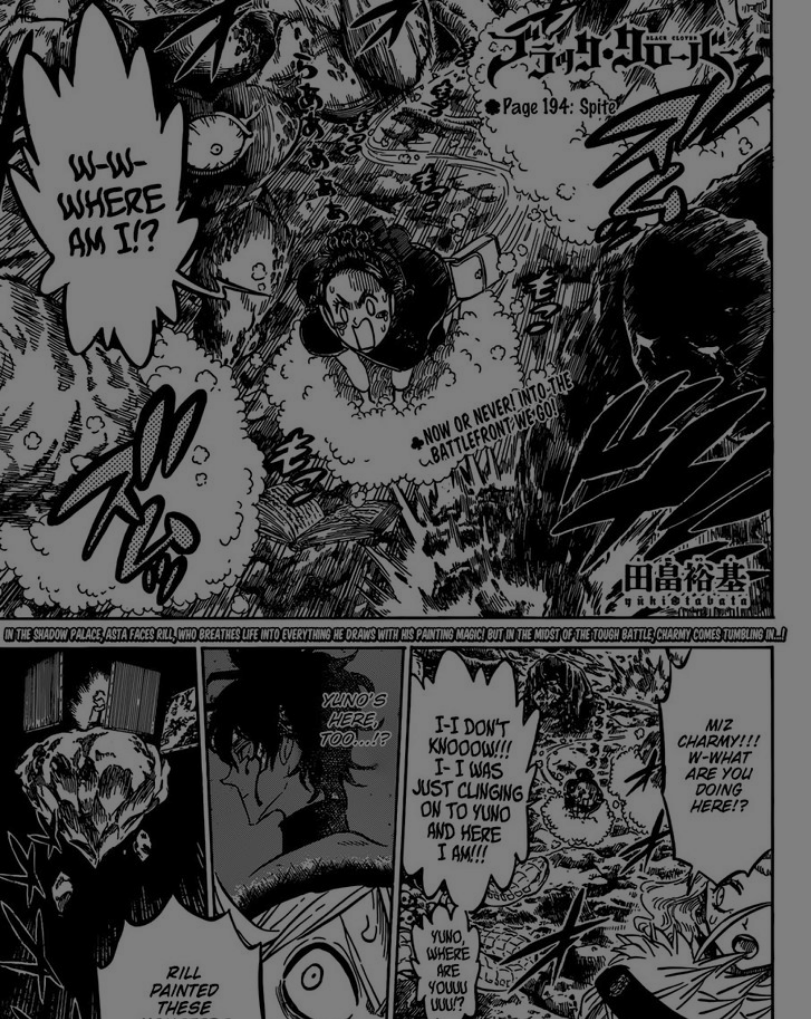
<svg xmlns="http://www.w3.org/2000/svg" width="811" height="1019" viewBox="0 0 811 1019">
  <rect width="100%" height="100%" fill="#808080"/>
  <image x="0" y="0" width="793" height="1019" href="img/1.png"/>
</svg>
